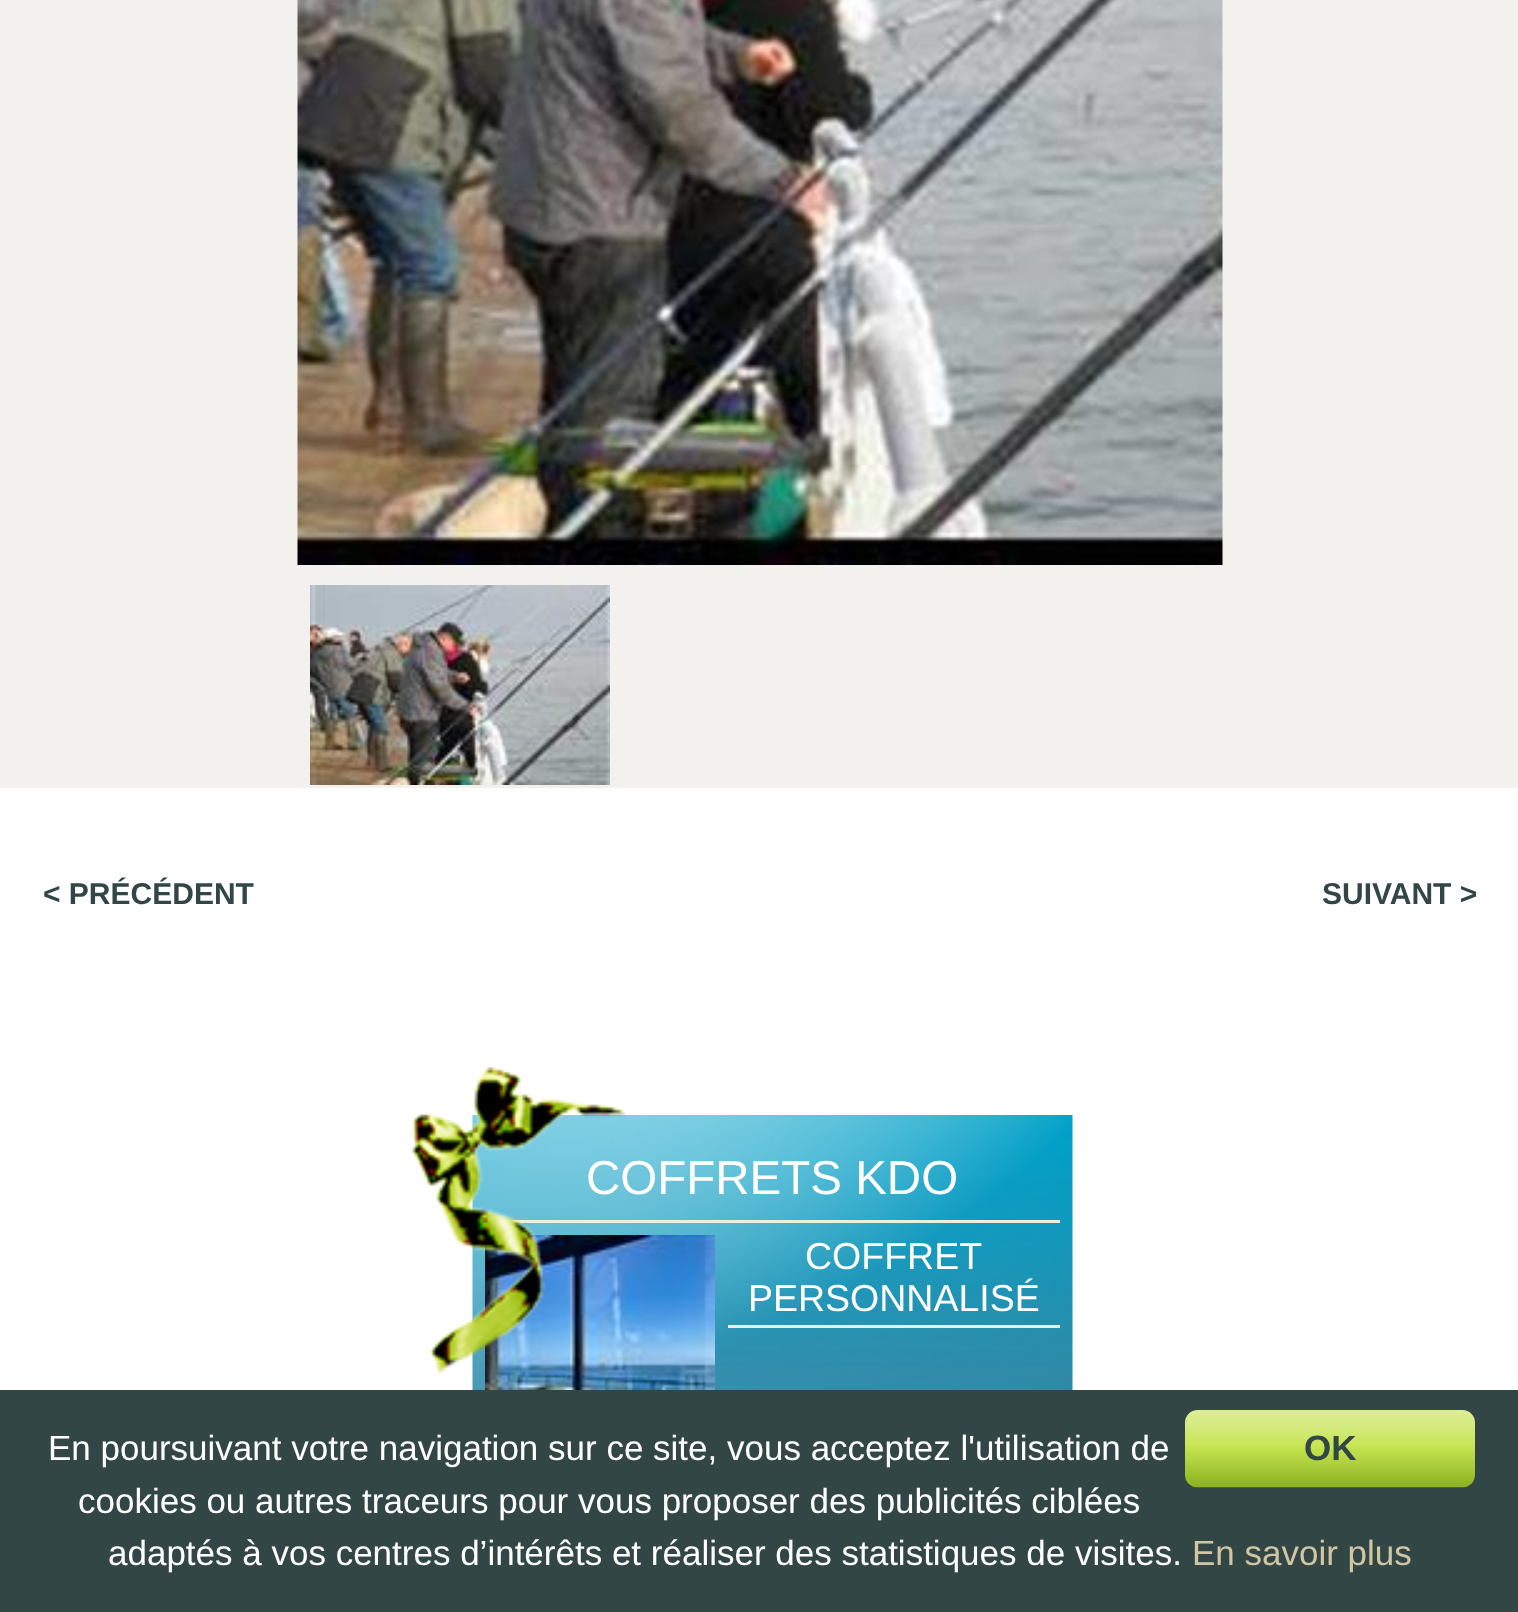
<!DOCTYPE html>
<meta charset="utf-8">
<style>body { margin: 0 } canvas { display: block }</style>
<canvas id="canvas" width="1518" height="1612"></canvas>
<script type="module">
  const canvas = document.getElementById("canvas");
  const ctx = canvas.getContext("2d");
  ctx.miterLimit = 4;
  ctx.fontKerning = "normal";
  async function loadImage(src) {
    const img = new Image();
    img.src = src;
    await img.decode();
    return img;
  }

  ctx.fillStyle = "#ffffff";
  ctx.fillRect(0, 0, 1518, 1612);
  ctx.fillStyle = "#f2f1ee";
  ctx.fillRect(0, 0, 1518, 788);
  ctx.drawImage(await loadImage("img1.png"), 297, 0, 926, 565);
  ctx.drawImage(await loadImage("img2.png"), 310, 585, 300, 200);
  ctx.font = "bold 30px Liberation Sans";
  ctx.fillStyle = "#324745";
  ctx.fillText("< PRÉCÉDENT", 43, 904);
  ctx.fillText("SUIVANT >", 1322, 904);
  ctx.drawImage(await loadImage("img3.png"), 472, 1115, 601, 275);
  ctx.fillStyle = "#ebf0db";
  ctx.fillRect(501, 1220, 559, 3);
  ctx.font = "47.5px Liberation Sans";
  ctx.fillStyle = "#ffffff";
  ctx.fillText("COFFRETS KDO", 586, 1194);
  ctx.drawImage(await loadImage("img5.png"), 485, 1235, 230, 155);
  ctx.drawImage(await loadImage("img4.png"), 412, 1067, 213, 306);
  ctx.fillStyle = "#ebf0db";
  ctx.fillRect(728, 1325, 332, 3);
  ctx.font = "37.5px Liberation Sans";
  ctx.fillStyle = "#ffffff";
  ctx.fillText("COFFRET", 805, 1269);
  ctx.fillText("PERSONNALISÉ", 748, 1311);
  ctx.fillStyle = "#324745";
  ctx.fillRect(0, 1390, 1518, 222);
  ctx.font = "35px Liberation Sans";
  ctx.fillStyle = "#ffffff";
  ctx.fillText("En poursuivant votre navigation sur ce site, vous acceptez l'utilisation de", 48, 1460);
  ctx.fillText("cookies ou autres traceurs pour vous proposer des publicités ciblées", 78, 1513);
  ctx.fillText("adaptés à vos centres d’intérêts et réaliser des statistiques de visites.", 108, 1565);
  ctx.fillStyle = "#d2c5a3";
  ctx.fillText("En savoir plus", 1192, 1565);
  ctx.drawImage(await loadImage("img6.png"), 1185, 1410, 290, 78);
  ctx.font = "bold 35px Liberation Sans";
  ctx.fillStyle = "#324745";
  ctx.fillText("OK", 1304, 1460);
</script>
